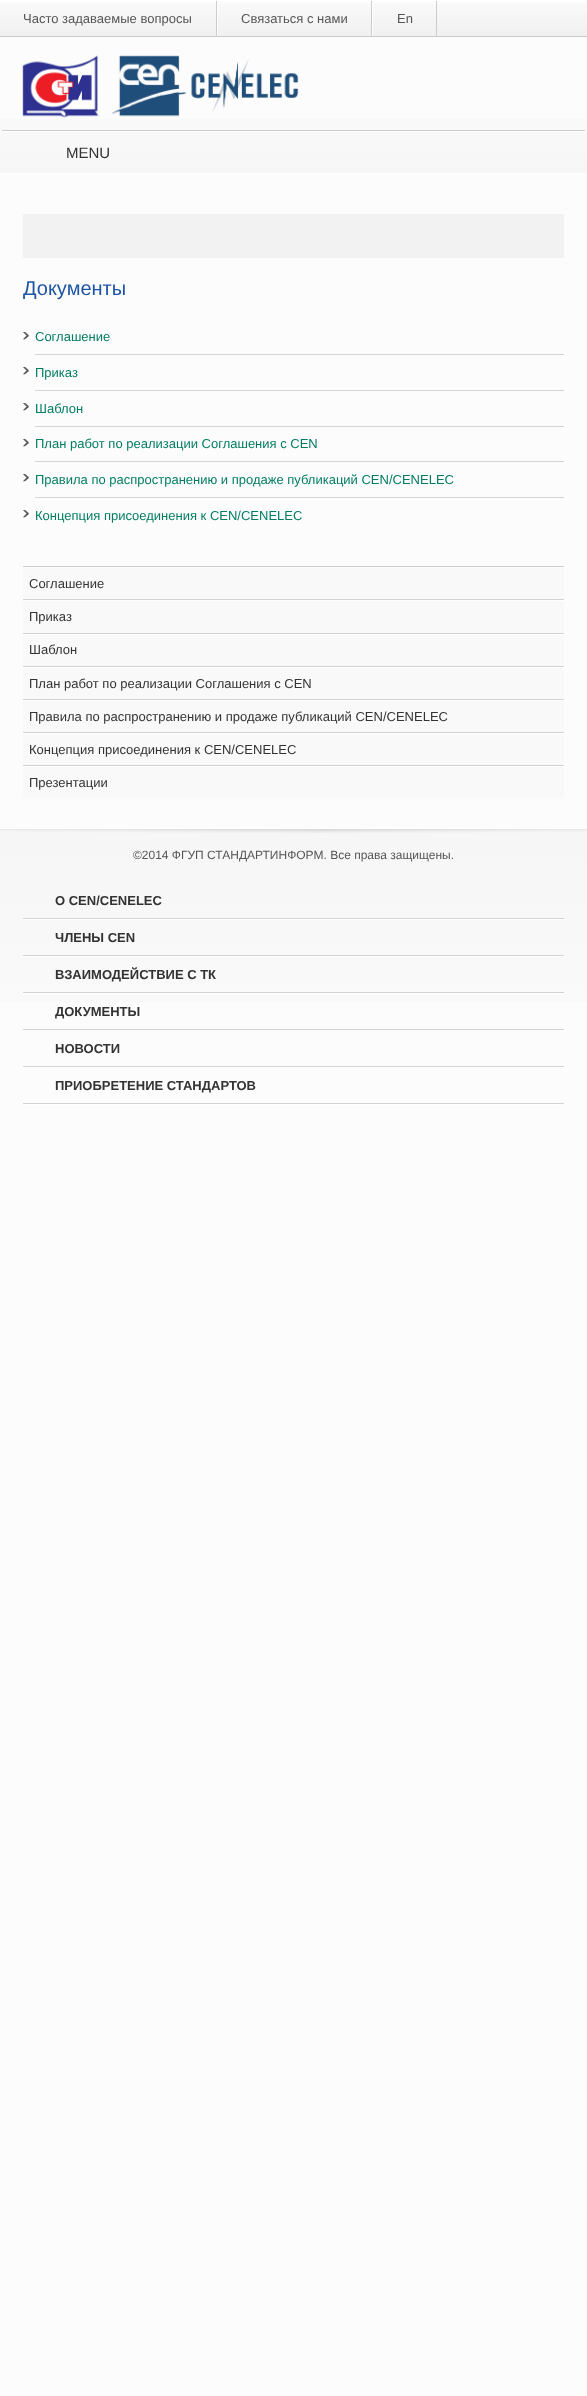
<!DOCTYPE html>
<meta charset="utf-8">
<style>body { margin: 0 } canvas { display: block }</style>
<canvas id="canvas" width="587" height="2396"></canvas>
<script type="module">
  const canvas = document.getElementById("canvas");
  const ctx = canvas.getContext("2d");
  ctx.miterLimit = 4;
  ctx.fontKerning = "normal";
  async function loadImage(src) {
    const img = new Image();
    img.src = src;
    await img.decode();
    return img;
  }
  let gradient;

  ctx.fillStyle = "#fcfcfc";
  ctx.fillRect(0, 0, 587, 2396);
  gradient = ctx.createLinearGradient(294, 1, 294, 173);
  gradient.addColorStop(0, "#fcfcfc");
  gradient.addColorStop(0.64, "#fafafa");
  gradient.addColorStop(1, "#f6f6f6");
  ctx.fillStyle = gradient;
  ctx.fillRect(0, 119, 587, 54);
  ctx.fillStyle = "#ffffff";
  ctx.fillRect(0, 0, 587, 1);
  gradient = ctx.createLinearGradient(294, 1, 294, 36);
  gradient.addColorStop(0, "#fafafa");
  gradient.addColorStop(1, "#f0f0f0");
  ctx.fillStyle = gradient;
  ctx.fillRect(0, 3, 587, 33);
  ctx.fillStyle = "#cccccc";
  ctx.fillRect(0, 36, 587, 1);
  ctx.fillRect(216, 1, 1, 35);
  ctx.font = "13px Liberation Sans";
  ctx.fillStyle = "#555555";
  ctx.fillText("Часто задаваемые вопросы", 23, 23);
  ctx.fillStyle = "#cccccc";
  ctx.fillRect(371, 1, 1, 35);
  ctx.fillStyle = "#ffffff";
  ctx.fillRect(217, 1, 1, 35);
  ctx.fillStyle = "#555555";
  ctx.fillText("Связаться с нами", 241, 23);
  ctx.fillStyle = "#cccccc";
  ctx.fillRect(436, 1, 1, 35);
  ctx.fillStyle = "#ffffff";
  ctx.fillRect(372, 1, 1, 35);
  ctx.fillStyle = "#555555";
  ctx.fillText("En", 397, 23);
  ctx.drawImage(await loadImage("img1.png"), 22, 55, 277, 63);
  ctx.fillStyle = "#cccccc";
  ctx.fillRect(2, 130, 583, 1);
  ctx.fillStyle = "#ffffff";
  ctx.fillRect(2, 131, 583, 1);
  ctx.font = "15px Liberation Sans";
  ctx.fillStyle = "#333333";
  ctx.fillText("MENU", 66, 158);
  ctx.fillStyle = "#ffffff";
  ctx.fillRect(0, 173, 587, 1);
  ctx.fillStyle = "#f2f2f2";
  ctx.fillRect(23, 214, 541, 44);
  ctx.font = "20px Liberation Sans";
  ctx.fillStyle = "#1d54a6";
  ctx.fillText("Документы", 23, 295);
  ctx.drawImage(await loadImage("img2.png"), 23, 332, 6, 8);
  ctx.fillStyle = "#d3d3d3";
  ctx.fillRect(35, 354, 529, 1);
  ctx.font = "13px Liberation Sans";
  ctx.fillStyle = "#007c63";
  ctx.fillText("Соглашение", 35, 341);
  ctx.drawImage(await loadImage("img2.png"), 23, 367, 6, 8);
  ctx.fillStyle = "#d3d3d3";
  ctx.fillRect(35, 390, 529, 1);
  ctx.fillStyle = "#007c63";
  ctx.fillText("Приказ", 35, 377);
  ctx.drawImage(await loadImage("img2.png"), 23, 403, 6, 8);
  ctx.fillStyle = "#d3d3d3";
  ctx.fillRect(35, 426, 529, 1);
  ctx.fillStyle = "#007c63";
  ctx.fillText("Шаблон", 35, 413);
  ctx.drawImage(await loadImage("img2.png"), 23, 439, 6, 8);
  ctx.fillStyle = "#d3d3d3";
  ctx.fillRect(35, 461, 529, 1);
  ctx.fillStyle = "#007c63";
  ctx.fillText("План работ по реализации Соглашения с CEN", 35, 448);
  ctx.drawImage(await loadImage("img2.png"), 23, 474, 6, 8);
  ctx.fillStyle = "#d3d3d3";
  ctx.fillRect(35, 497, 529, 1);
  ctx.fillStyle = "#007c63";
  ctx.fillText("Правила по распространению и продаже публикаций CEN/CENELEC", 35, 484);
  ctx.drawImage(await loadImage("img2.png"), 23, 510, 6, 8);
  ctx.fillText("Концепция присоединения к CEN/CENELEC", 35, 520);
  ctx.fillStyle = "#cccccc";
  ctx.fillRect(23, 566, 541, 1);
  ctx.fillStyle = "#f9f9f9";
  ctx.fillRect(23, 568, 541, 31);
  ctx.fillStyle = "#ffffff";
  ctx.fillRect(23, 567, 541, 1);
  ctx.fillStyle = "#d3d3d3";
  ctx.fillRect(23, 599, 541, 1);
  ctx.fillStyle = "#333333";
  ctx.fillText("Соглашение", 29, 588);
  ctx.fillStyle = "#f9f9f9";
  ctx.fillRect(23, 601, 541, 32);
  ctx.fillStyle = "#ffffff";
  ctx.fillRect(23, 600, 541, 1);
  ctx.fillStyle = "#d3d3d3";
  ctx.fillRect(23, 633, 541, 1);
  ctx.fillStyle = "#333333";
  ctx.fillText("Приказ", 29, 621);
  ctx.fillStyle = "#f9f9f9";
  ctx.fillRect(23, 635, 541, 31);
  ctx.fillStyle = "#ffffff";
  ctx.fillRect(23, 634, 541, 1);
  ctx.fillStyle = "#d3d3d3";
  ctx.fillRect(23, 666, 541, 1);
  ctx.fillStyle = "#333333";
  ctx.fillText("Шаблон", 29, 654);
  ctx.fillStyle = "#f9f9f9";
  ctx.fillRect(23, 668, 541, 31);
  ctx.fillStyle = "#ffffff";
  ctx.fillRect(23, 667, 541, 1);
  ctx.fillStyle = "#d3d3d3";
  ctx.fillRect(23, 699, 541, 1);
  ctx.fillStyle = "#333333";
  ctx.fillText("План работ по реализации Соглашения с CEN", 29, 688);
  ctx.fillStyle = "#f9f9f9";
  ctx.fillRect(23, 701, 541, 31);
  ctx.fillStyle = "#ffffff";
  ctx.fillRect(23, 700, 541, 1);
  ctx.fillStyle = "#d3d3d3";
  ctx.fillRect(23, 732, 541, 1);
  ctx.fillStyle = "#333333";
  ctx.fillText("Правила по распространению и продаже публикаций CEN/CENELEC", 29, 721);
  ctx.fillStyle = "#f9f9f9";
  ctx.fillRect(23, 734, 541, 31);
  ctx.fillStyle = "#ffffff";
  ctx.fillRect(23, 733, 541, 1);
  ctx.fillStyle = "#d3d3d3";
  ctx.fillRect(23, 765, 541, 1);
  ctx.fillStyle = "#333333";
  ctx.fillText("Концепция присоединения к CEN/CENELEC", 29, 754);
  ctx.fillStyle = "#f9f9f9";
  ctx.fillRect(23, 767, 541, 31);
  ctx.fillStyle = "#ffffff";
  ctx.fillRect(23, 766, 541, 1);
  ctx.fillStyle = "#333333";
  ctx.fillText("Презентации", 29, 787);
  gradient = ctx.createLinearGradient(294, 829, 294, 1125);
  gradient.addColorStop(0, "#f6f6f6");
  gradient.addColorStop(1, "#fcfcfc");
  ctx.fillStyle = gradient;
  ctx.fillRect(0, 829, 587, 173);
  ctx.fillStyle = "#ffffff";
  ctx.fillRect(0, 828, 587, 1);
  ctx.drawImage(await loadImage("img3.png"), 0, 829, 587, 4);
  ctx.font = "12px Liberation Sans";
  ctx.fillStyle = "#555555";
  ctx.fillText("©2014 ФГУП СТАНДАРТИНФОРМ. Все права защищены.", 133, 859);
  ctx.fillStyle = "#ffffff";
  ctx.fillRect(23, 919, 541, 1);
  ctx.fillStyle = "#d3d3d3";
  ctx.fillRect(23, 918, 541, 1);
  ctx.font = "bold 13px Liberation Sans";
  ctx.fillStyle = "#333333";
  ctx.fillText("О CEN/CENELEC", 55, 905);
  ctx.fillStyle = "#ffffff";
  ctx.fillRect(23, 956, 541, 1);
  ctx.fillStyle = "#d3d3d3";
  ctx.fillRect(23, 955, 541, 1);
  ctx.fillStyle = "#333333";
  ctx.fillText("ЧЛЕНЫ CEN", 55, 942);
  ctx.fillStyle = "#ffffff";
  ctx.fillRect(23, 993, 541, 1);
  ctx.fillStyle = "#d3d3d3";
  ctx.fillRect(23, 992, 541, 1);
  ctx.fillStyle = "#333333";
  ctx.fillText("ВЗАИМОДЕЙСТВИЕ С ТК", 55, 979);
  ctx.fillStyle = "#ffffff";
  ctx.fillRect(23, 1030, 541, 1);
  ctx.fillStyle = "#d3d3d3";
  ctx.fillRect(23, 1029, 541, 1);
  ctx.fillStyle = "#333333";
  ctx.fillText("ДОКУМЕНТЫ", 55, 1016);
  ctx.fillStyle = "#ffffff";
  ctx.fillRect(23, 1067, 541, 1);
  ctx.fillStyle = "#d3d3d3";
  ctx.fillRect(23, 1066, 541, 1);
  ctx.fillStyle = "#333333";
  ctx.fillText("НОВОСТИ", 55, 1053);
  ctx.fillStyle = "#ffffff";
  ctx.fillRect(23, 1104, 541, 1);
  ctx.fillStyle = "#d3d3d3";
  ctx.fillRect(23, 1103, 541, 1);
  ctx.fillStyle = "#333333";
  ctx.fillText("ПРИОБРЕТЕНИЕ СТАНДАРТОВ", 55, 1090);
</script>
